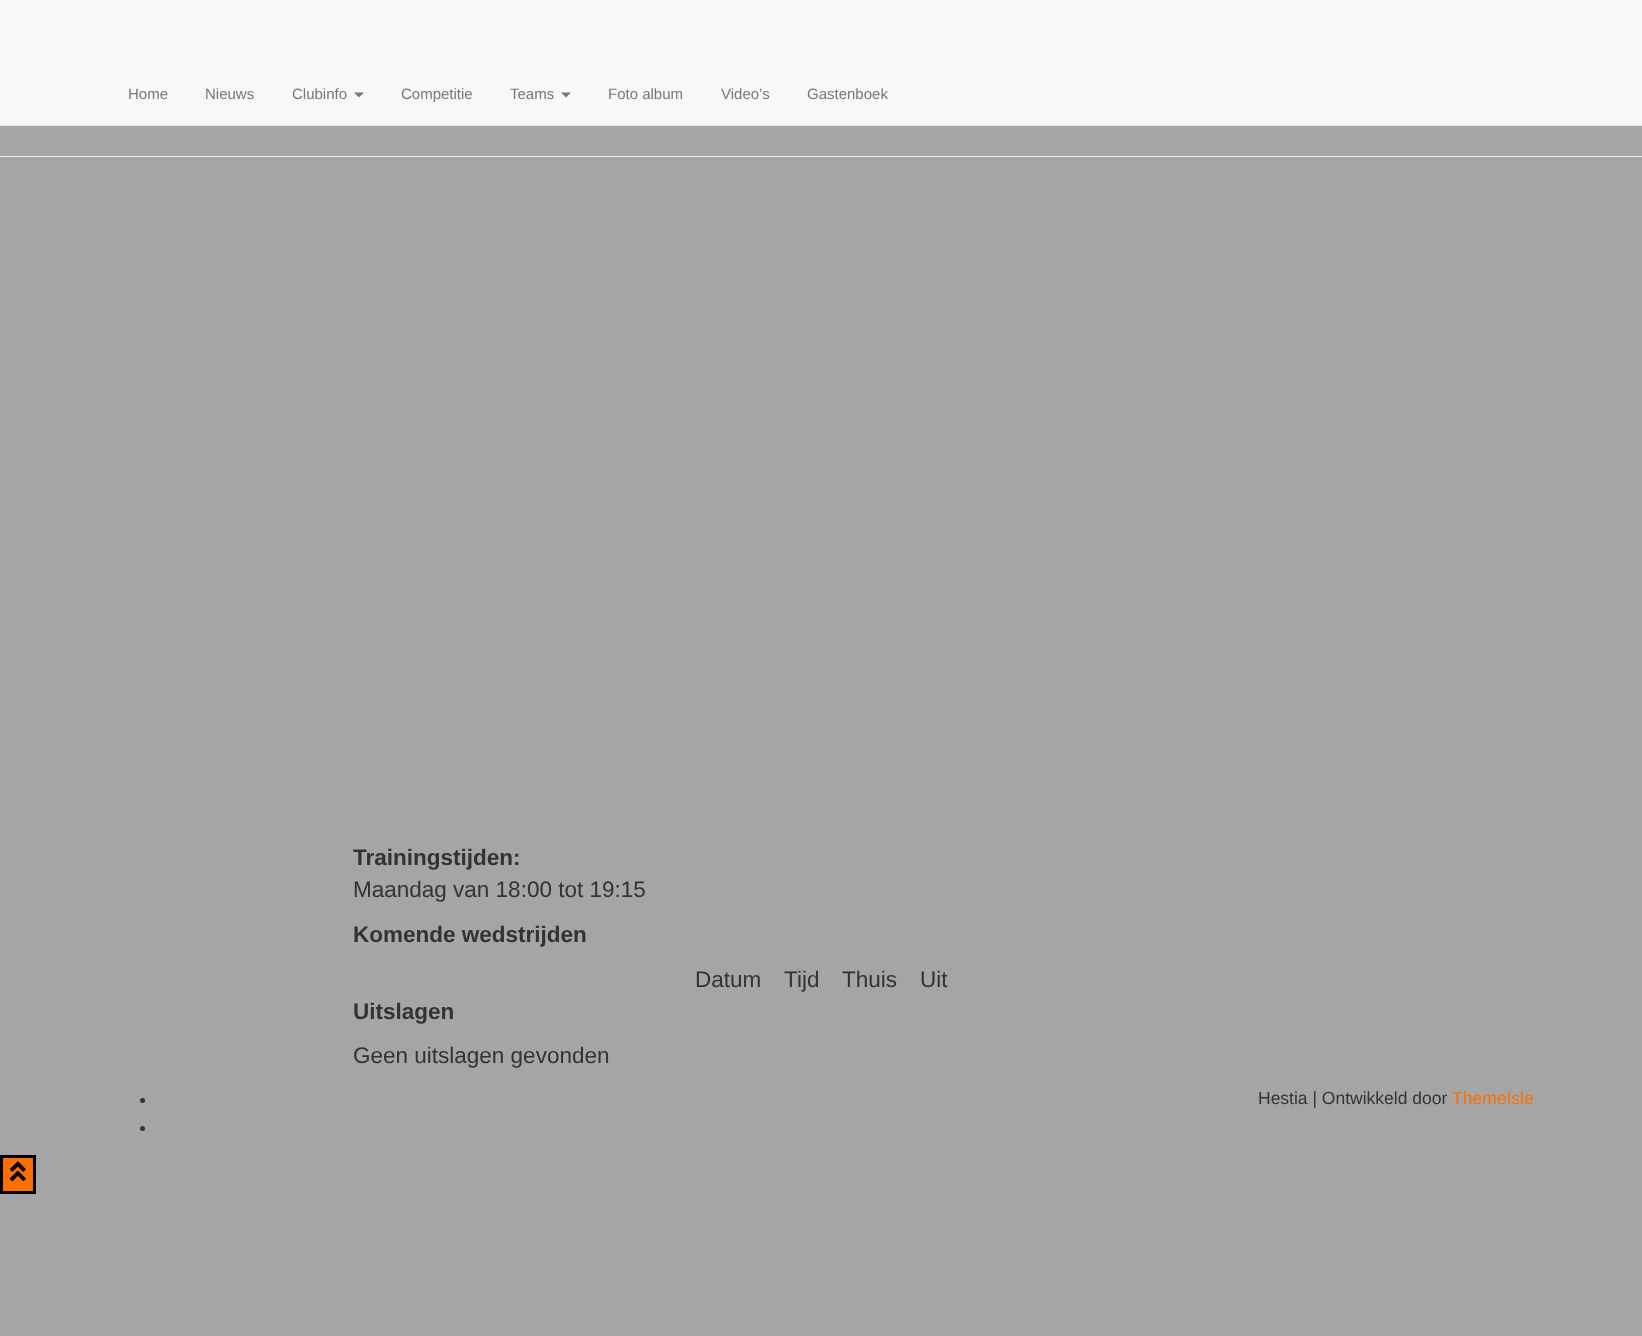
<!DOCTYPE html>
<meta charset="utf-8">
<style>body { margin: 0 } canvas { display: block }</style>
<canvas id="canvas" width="1642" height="1336"></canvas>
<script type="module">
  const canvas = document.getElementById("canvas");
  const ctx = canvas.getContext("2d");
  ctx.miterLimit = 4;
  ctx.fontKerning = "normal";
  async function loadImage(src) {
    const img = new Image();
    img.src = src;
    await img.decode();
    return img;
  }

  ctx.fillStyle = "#a5a5a5";
  ctx.fillRect(0, 0, 1642, 1336);
  ctx.fillStyle = "#f8f8f8";
  ctx.fillRect(0, 0, 1642, 125);
  ctx.fillStyle = "#e7e7e7";
  ctx.fillRect(0, 125, 1642, 1);
  ctx.font = "15px Liberation Sans";
  ctx.fillStyle = "#777777";
  ctx.fillText("Home", 128, 99);
  ctx.fillText("Nieuws", 205, 99);
  ctx.fillText("Clubinfo", 292, 99);
  ctx.beginPath();
  ctx.moveTo(354, 92.5);
  ctx.lineTo(364, 92.5);
  ctx.lineTo(359, 97.5);
  ctx.closePath();
  ctx.fill();
  ctx.fillText("Competitie", 401, 99);
  ctx.fillText("Teams", 510, 99);
  ctx.beginPath();
  ctx.moveTo(561, 92.5);
  ctx.lineTo(571, 92.5);
  ctx.lineTo(566, 97.5);
  ctx.closePath();
  ctx.fill();
  ctx.fillText("Foto album", 608, 99);
  ctx.fillText("Video’s", 721, 99);
  ctx.fillText("Gastenboek", 807, 99);
  ctx.fillStyle = "#eeeeee";
  ctx.fillRect(0, 156, 1642, 1);
  ctx.font = "bold 22.5px Liberation Sans";
  ctx.fillStyle = "#333333";
  ctx.fillText("Trainingstijden:", 353, 865);
  ctx.font = "22.5px Liberation Sans";
  ctx.fillText("Maandag van 18:00 tot 19:15", 353, 897);
  ctx.font = "bold 22.5px Liberation Sans";
  ctx.fillText("Komende wedstrijden", 353, 942);
  ctx.font = "22.5px Liberation Sans";
  ctx.fillText("Datum", 695, 987);
  ctx.fillText("Tijd", 784, 987);
  ctx.fillText("Thuis", 842, 987);
  ctx.fillText("Uit", 920, 987);
  ctx.font = "bold 22.5px Liberation Sans";
  ctx.fillText("Uitslagen", 353, 1019);
  ctx.font = "22.5px Liberation Sans";
  ctx.fillText("Geen uitslagen gevonden", 353, 1063);
  ctx.beginPath();
  ctx.arc(142.5, 1100.5, 2.5, 0, Math.PI * 2);
  ctx.fill();
  ctx.beginPath();
  ctx.arc(142.5, 1128.5, 2.5, 0, Math.PI * 2);
  ctx.fill();
  ctx.font = "17.5px Liberation Sans";
  ctx.fillText("Hestia | Ontwikkeld door", 1258, 1104);
  ctx.fillStyle = "#ff6e00";
  ctx.fillText("ThemeIsle", 1452, 1104);
  ctx.beginPath();
  ctx.rect(1.5, 1156.5, 33, 36);
  ctx.fill();
  ctx.strokeStyle = "#000000";
  ctx.lineWidth = 3;
  ctx.stroke();
  ctx.drawImage(await loadImage("img1.png"), 10, 1161, 16, 20);
</script>
